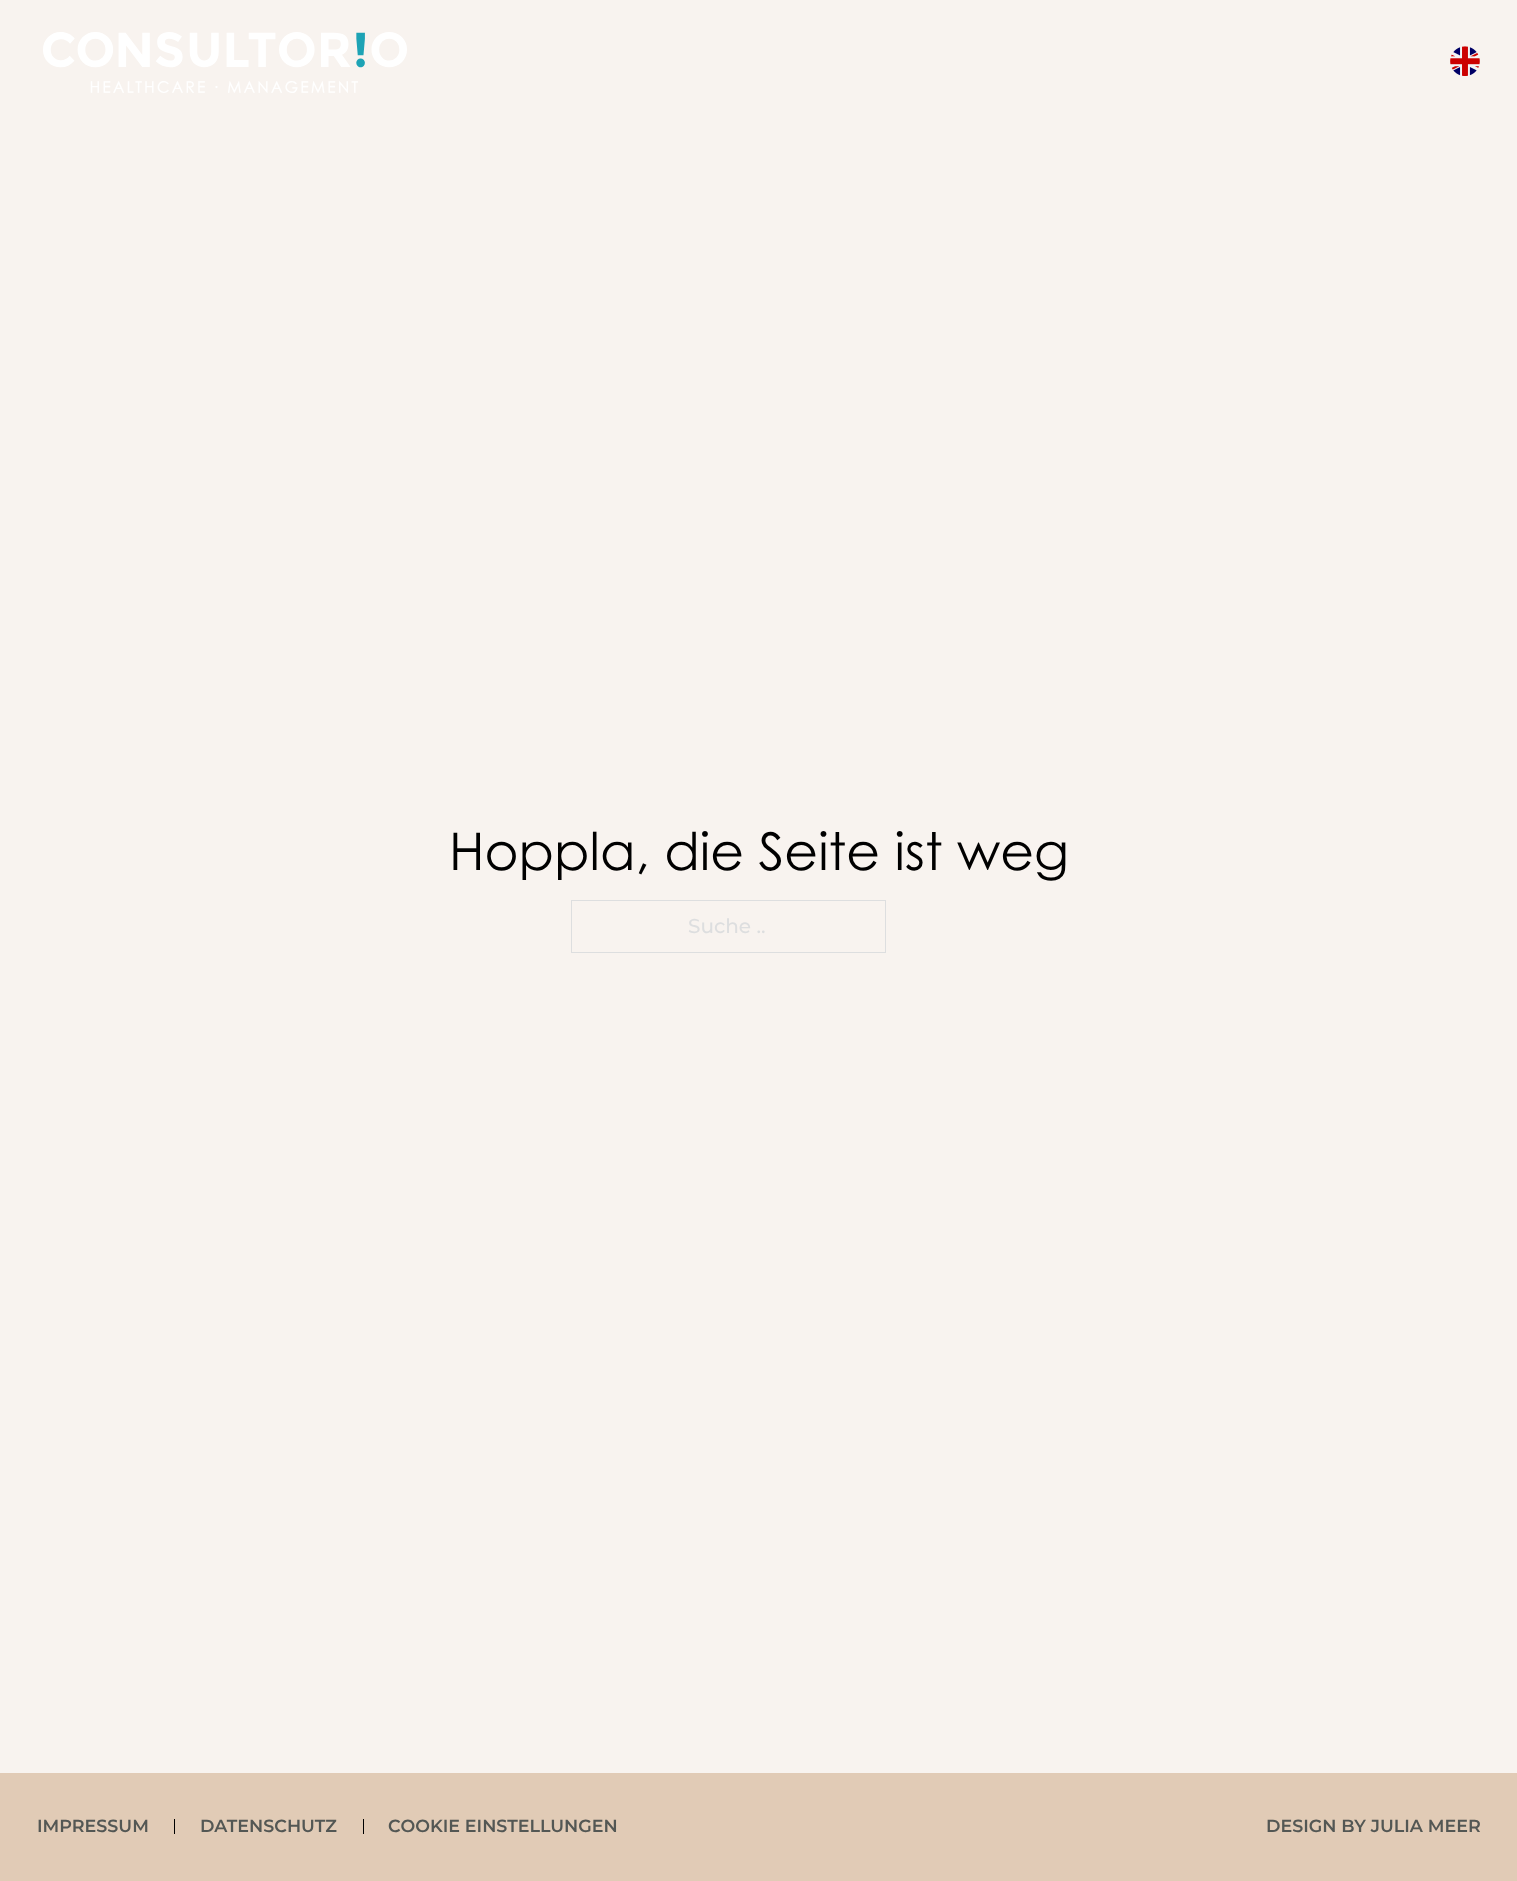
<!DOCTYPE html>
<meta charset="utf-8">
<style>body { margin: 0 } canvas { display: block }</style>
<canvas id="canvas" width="1517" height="1881"></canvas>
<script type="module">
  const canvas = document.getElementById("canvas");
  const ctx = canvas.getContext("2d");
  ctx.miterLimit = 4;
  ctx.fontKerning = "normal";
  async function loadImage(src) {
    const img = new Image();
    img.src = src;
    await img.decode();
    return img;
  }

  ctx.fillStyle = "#f8f3ef";
  ctx.fillRect(0, 0, 1517, 1881);
  ctx.drawImage(await loadImage("img1.png"), 43, 32, 364, 61);
  ctx.drawImage(await loadImage("img2.png"), 1450, 46, 30, 30);
  ctx.font = "52px Century Gothic";
  ctx.fillStyle = "#000000";
  ctx.fillText("Hoppla, die Seite ist weg", 449, 870);
  ctx.strokeStyle = "#dddedf";
  ctx.strokeRect(571.5, 900.5, 314, 52);
  ctx.font = "100 20px Montserrat";
  ctx.fillStyle = "#dddedf";
  ctx.fillText("Suche ..", 688, 933);
  ctx.fillStyle = "#e1cbb6";
  ctx.fillRect(0, 1773, 1517, 108);
  ctx.font = "100 17.5px 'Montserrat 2'";
  ctx.fillStyle = "#535754";
  ctx.fillText("IMPRESSUM", 37, 1832);
  ctx.fillStyle = "#000000";
  ctx.fillRect(174, 1819, 1, 15);
  ctx.fillStyle = "#535754";
  ctx.fillText("DATENSCHUTZ", 200, 1832);
  ctx.fillStyle = "#000000";
  ctx.fillRect(363, 1819, 1, 15);
  ctx.fillStyle = "#535754";
  ctx.fillText("COOKIE EINSTELLUNGEN", 388, 1832);
  ctx.fillText("DESIGN BY JULIA MEER", 1266, 1832);
</script>
